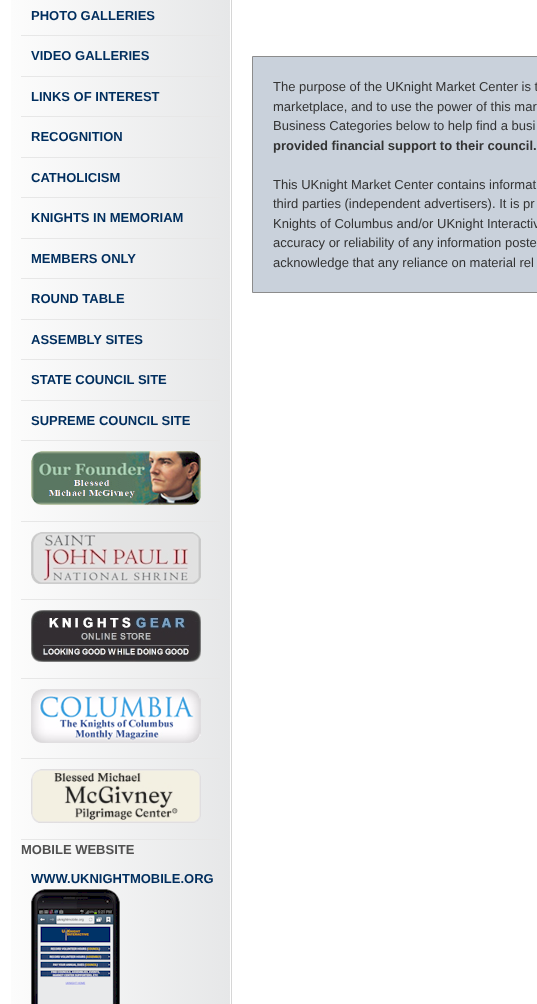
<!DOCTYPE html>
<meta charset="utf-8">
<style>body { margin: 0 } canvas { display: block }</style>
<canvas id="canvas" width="537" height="1004"></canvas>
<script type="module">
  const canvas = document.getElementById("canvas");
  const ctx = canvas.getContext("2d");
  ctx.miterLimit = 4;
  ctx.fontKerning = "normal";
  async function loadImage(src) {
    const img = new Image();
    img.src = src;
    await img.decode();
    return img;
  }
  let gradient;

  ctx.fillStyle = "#ffffff";
  ctx.fillRect(0, 0, 537, 1004);
  gradient = ctx.createLinearGradient(11, 386, 231, 386);
  gradient.addColorStop(0, "#fcfcfc");
  gradient.addColorStop(1, "#e6e7e8");
  ctx.fillStyle = gradient;
  ctx.fillRect(11, 0, 219, 1004);
  ctx.fillStyle = "#d6d6d6";
  ctx.fillRect(231, 0, 1, 1004);
  ctx.fillStyle = "#e7e7e7";
  ctx.fillRect(21, 35, 199, 1);
  ctx.font = "bold 13px Liberation Sans";
  ctx.fillStyle = "#002e5e";
  ctx.fillText("PHOTO GALLERIES", 31, 20);
  ctx.fillStyle = "#e7e7e7";
  ctx.fillRect(21, 76, 199, 1);
  ctx.fillStyle = "#002e5e";
  ctx.fillText("VIDEO GALLERIES", 31, 60);
  ctx.fillStyle = "#e7e7e7";
  ctx.fillRect(21, 116, 199, 1);
  ctx.fillStyle = "#002e5e";
  ctx.fillText("LINKS OF INTEREST", 31, 101);
  ctx.fillStyle = "#e7e7e7";
  ctx.fillRect(21, 157, 199, 1);
  ctx.fillStyle = "#002e5e";
  ctx.fillText("RECOGNITION", 31, 141);
  ctx.fillStyle = "#e7e7e7";
  ctx.fillRect(21, 197, 199, 1);
  ctx.fillStyle = "#002e5e";
  ctx.fillText("CATHOLICISM", 31, 182);
  ctx.fillStyle = "#e7e7e7";
  ctx.fillRect(21, 238, 199, 1);
  ctx.fillStyle = "#002e5e";
  ctx.fillText("KNIGHTS IN MEMORIAM", 31, 222);
  ctx.fillStyle = "#e7e7e7";
  ctx.fillRect(21, 278, 199, 1);
  ctx.fillStyle = "#002e5e";
  ctx.fillText("MEMBERS ONLY", 31, 263);
  ctx.fillStyle = "#e7e7e7";
  ctx.fillRect(21, 319, 199, 1);
  ctx.fillStyle = "#002e5e";
  ctx.fillText("ROUND TABLE", 31, 303);
  ctx.fillStyle = "#e7e7e7";
  ctx.fillRect(21, 359, 199, 1);
  ctx.fillStyle = "#002e5e";
  ctx.fillText("ASSEMBLY SITES", 31, 344);
  ctx.fillStyle = "#e7e7e7";
  ctx.fillRect(21, 400, 199, 1);
  ctx.fillStyle = "#002e5e";
  ctx.fillText("STATE COUNCIL SITE", 31, 384);
  ctx.fillStyle = "#e7e7e7";
  ctx.fillRect(21, 440, 199, 1);
  ctx.fillStyle = "#002e5e";
  ctx.fillText("SUPREME COUNCIL SITE", 31, 425);
  ctx.fillStyle = "#e7e7e7";
  ctx.fillRect(21, 521, 199, 1);
  ctx.drawImage(await loadImage("img1.png"), 31, 451, 170, 54);
  ctx.fillRect(21, 599, 199, 1);
  ctx.drawImage(await loadImage("img2.png"), 31, 532, 170, 52);
  ctx.fillRect(21, 678, 199, 1);
  ctx.drawImage(await loadImage("img3.png"), 31, 610, 170, 52);
  ctx.fillRect(21, 758, 199, 1);
  ctx.drawImage(await loadImage("img4.png"), 31, 689, 170, 54);
  ctx.fillRect(21, 839, 199, 1);
  ctx.drawImage(await loadImage("img5.png"), 31, 769, 170, 54);
  ctx.fillStyle = "#515151";
  ctx.fillText("MOBILE WEBSITE", 21, 854);
  ctx.fillStyle = "#002e5e";
  ctx.fillText("WWW.UKNIGHTMOBILE.ORG", 31, 883);
  ctx.drawImage(await loadImage("img6.png"), 31, 889, 89, 115);
  ctx.fillStyle = "#c9d1db";
  ctx.beginPath();
  ctx.rect(252.5, 56.5, 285, 236);
  ctx.fill();
  ctx.strokeStyle = "#8c8c8c";
  ctx.stroke();
  ctx.font = "13px Liberation Sans";
  ctx.fillStyle = "#333333";
  ctx.fillText("The purpose of the UKnight Market Center is t", 273, 91);
  ctx.fillText("marketplace, and to use the power of this mar", 273, 111);
  ctx.fillText("Business Categories below to help find a busi", 273, 130);
  ctx.font = "bold 13px Liberation Sans";
  ctx.fillText("provided financial support to their council.", 273, 150);
  ctx.font = "13px Liberation Sans";
  ctx.fillText("This UKnight Market Center contains informat", 273, 189);
  ctx.fillText("third parties (independent advertisers). It is pr", 273, 208);
  ctx.fillText("Knights of Columbus and/or UKnight Interactiv", 273, 228);
  ctx.fillText("accuracy or reliability of any information poste", 273, 247);
  ctx.fillText("acknowledge that any reliance on material rel", 273, 267);
</script>
